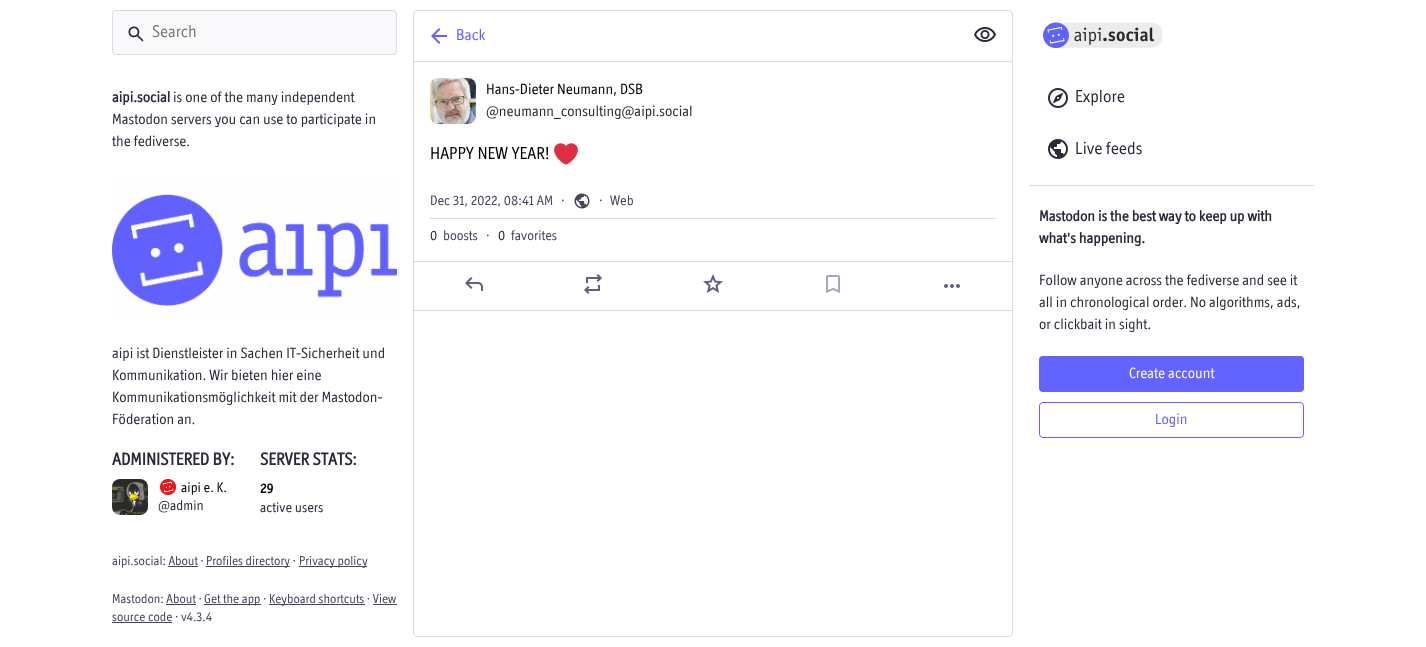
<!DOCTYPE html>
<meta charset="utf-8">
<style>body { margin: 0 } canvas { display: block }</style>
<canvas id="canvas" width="1426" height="647"></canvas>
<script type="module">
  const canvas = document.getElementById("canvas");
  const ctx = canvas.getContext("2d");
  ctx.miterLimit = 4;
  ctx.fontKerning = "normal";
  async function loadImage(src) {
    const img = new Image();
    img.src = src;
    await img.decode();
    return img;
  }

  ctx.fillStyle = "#ffffff";
  ctx.fillRect(0, 0, 1426, 647);
  ctx.fillStyle = "#f9f9fb";
  ctx.beginPath();
  ctx.roundRect(112.5, 10.5, 284, 44, 3.5);
  ctx.fill();
  ctx.strokeStyle = "#d9d9e8";
  ctx.stroke();
  ctx.drawImage(await loadImage("img1.png"), 128, 26, 16, 16);
  ctx.font = "17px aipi";
  ctx.fillStyle = "#757575";
  ctx.fillText("Search", 152, 37);
  ctx.font = "bold 15px aipi";
  ctx.fillStyle = "#292938";
  ctx.fillText("aipi.social", 112, 102);
  ctx.font = "15px aipi";
  ctx.fillText("is one of the many independent", 173, 102);
  ctx.fillText("Mastodon servers you can use to participate in", 112, 124);
  ctx.fillText("the fediverse.", 112, 146);
  ctx.drawImage(await loadImage("img2.png"), 112, 173, 285, 150);
  ctx.fillText("aipi ist Dienstleister in Sachen IT-Sicherheit und", 112, 358);
  ctx.fillText("Kommunikation. Wir bieten hier eine", 112, 380);
  ctx.fillText("Kommunikationsmöglichkeit mit der Mastodon-", 112, 402);
  ctx.fillText("Föderation an.", 112, 424);
  ctx.font = "bold 17.5px aipi";
  ctx.fillText("ADMINISTERED BY:", 112, 465);
  ctx.drawImage(await loadImage("img3.png"), 112, 479, 36, 36);
  ctx.drawImage(await loadImage("img4.png"), 160, 479, 16, 16);
  ctx.font = "14px aipi";
  ctx.fillStyle = "#000000";
  ctx.fillText("aipi e. K.", 181, 492);
  ctx.fillStyle = "#292938";
  ctx.fillText("@admin", 158, 510);
  ctx.font = "bold 17.5px aipi";
  ctx.fillText("SERVER STATS:", 260, 465);
  ctx.font = "bold 14px aipi";
  ctx.fillStyle = "#000000";
  ctx.fillText("29", 260, 493);
  ctx.font = "14px aipi";
  ctx.fillStyle = "#292938";
  ctx.fillText("active users", 260, 512);
  ctx.font = "13px aipi";
  ctx.fillStyle = "#45455f";
  ctx.fillText("aipi.social: About ·", 112, 565);
  ctx.fillRect(206, 566, 84, 1);
  ctx.fillText("Profiles directory ·", 206, 565);
  ctx.fillRect(299, 566, 68, 1);
  ctx.fillText("Privacy policy", 299, 565);
  ctx.fillRect(168, 566, 30, 1);
  ctx.fillText("Mastodon: About ·", 112, 603);
  ctx.fillRect(204, 604, 57, 1);
  ctx.fillText("Get the app ·", 204, 603);
  ctx.fillRect(269, 604, 96, 1);
  ctx.fillText("Keyboard shortcuts · View", 269, 603);
  ctx.fillRect(166, 604, 30, 1);
  ctx.fillText("source code · v4.3.4", 112, 621);
  ctx.fillRect(373, 604, 24, 1);
  ctx.fillRect(112, 622, 60, 1);
  ctx.beginPath();
  ctx.roundRect(413.5, 10.5, 599, 51, [3.5, 3.5, 0, 0]);
  ctx.stroke();
  ctx.drawImage(await loadImage("img5.png"), 431, 28, 16, 16);
  ctx.font = "16px aipi";
  ctx.fillStyle = "#6161ff";
  ctx.fillText("Back", 456, 40);
  ctx.drawImage(await loadImage("img6.png"), 974, 27, 22, 15);
  ctx.fillStyle = "#d9d9e8";
  ctx.beginPath();
  ctx.moveTo(413, 62);
  ctx.lineTo(1013, 62);
  ctx.lineTo(1013, 633);
  ctx.bezierCurveTo(1013, 635, 1011, 637, 1009, 637);
  ctx.lineTo(417, 637);
  ctx.bezierCurveTo(415, 637, 413, 635, 413, 633);
  ctx.closePath();
  ctx.moveTo(414, 62);
  ctx.lineTo(1012, 62);
  ctx.lineTo(1012, 633);
  ctx.bezierCurveTo(1012, 635, 1011, 636, 1009, 636);
  ctx.lineTo(417, 636);
  ctx.bezierCurveTo(415, 636, 414, 635, 414, 633);
  ctx.closePath();
  ctx.fill("evenodd");
  ctx.drawImage(await loadImage("img7.png"), 430, 78, 46, 46);
  ctx.font = "15px aipi";
  ctx.fillStyle = "#000000";
  ctx.fillText("Hans-Dieter Neumann, DSB", 486, 94);
  ctx.fillStyle = "#292938";
  ctx.fillText("@neumann_consulting@aipi.social", 486, 116);
  ctx.font = "17.5px aipi";
  ctx.fillStyle = "#000000";
  ctx.fillText("HAPPY NEW YEAR!", 430, 159);
  ctx.drawImage(await loadImage("img8.png"), 554, 143, 24, 22);
  ctx.fillStyle = "#d9d9e8";
  ctx.fillRect(430, 218, 566, 1);
  ctx.font = "14px aipi";
  ctx.fillStyle = "#45455f";
  ctx.fillText("Dec 31, 2022, 08:41 AM", 430, 205);
  ctx.fillText("·", 561, 205);
  ctx.drawImage(await loadImage("img9.png"), 574, 193, 16, 16);
  ctx.fillText("·", 599, 205);
  ctx.fillText("Web", 610, 205);
  ctx.fillStyle = "#292938";
  ctx.fillText("0", 430, 240);
  ctx.fillStyle = "#45455f";
  ctx.fillText("boosts", 443, 240);
  ctx.fillText("·", 486, 240);
  ctx.fillStyle = "#292938";
  ctx.fillText("0", 498, 240);
  ctx.fillStyle = "#45455f";
  ctx.fillText("favorites", 511, 240);
  ctx.fillStyle = "#d9d9e8";
  ctx.fillRect(414, 261, 598, 1);
  ctx.fillRect(414, 310, 598, 1);
  ctx.drawImage(await loadImage("img10.png"), 465, 277, 18, 14);
  ctx.drawImage(await loadImage("img11.png"), 584, 274, 18, 20);
  ctx.drawImage(await loadImage("img12.png"), 703, 274, 20, 19);
  ctx.drawImage(await loadImage("img13.png"), 826, 275, 14, 18);
  ctx.drawImage(await loadImage("img14.png"), 944, 284, 16, 4);
  ctx.drawImage(await loadImage("img15.png"), 1043, 22, 119, 27);
  ctx.drawImage(await loadImage("img16.png"), 1048, 88, 20, 20);
  ctx.font = "17.5px aipi";
  ctx.fillStyle = "#292938";
  ctx.fillText("Explore", 1075, 102);
  ctx.drawImage(await loadImage("img17.png"), 1048, 139, 20, 20);
  ctx.fillText("Live feeds", 1075, 154);
  ctx.fillStyle = "#d9d9e8";
  ctx.fillRect(1029, 185, 285, 1);
  ctx.font = "bold 15px aipi";
  ctx.fillStyle = "#292938";
  ctx.fillText("Mastodon is the best way to keep up with", 1039, 221);
  ctx.fillText("what's happening.", 1039, 243);
  ctx.font = "15px aipi";
  ctx.fillText("Follow anyone across the fediverse and see it", 1039, 285);
  ctx.fillText("all in chronological order. No algorithms, ads,", 1039, 307);
  ctx.fillText("or clickbait in sight.", 1039, 329);
  ctx.fillStyle = "#6364ff";
  ctx.beginPath();
  ctx.roundRect(1039, 356, 265, 36, 4);
  ctx.fill();
  ctx.fillStyle = "#ffffff";
  ctx.fillText("Create account", 1129, 378);
  ctx.beginPath();
  ctx.roundRect(1039.5, 402.5, 264, 35, 3.5);
  ctx.strokeStyle = "#6161ff";
  ctx.stroke();
  ctx.fillStyle = "#6161ff";
  ctx.fillText("Login", 1155, 424);
</script>
